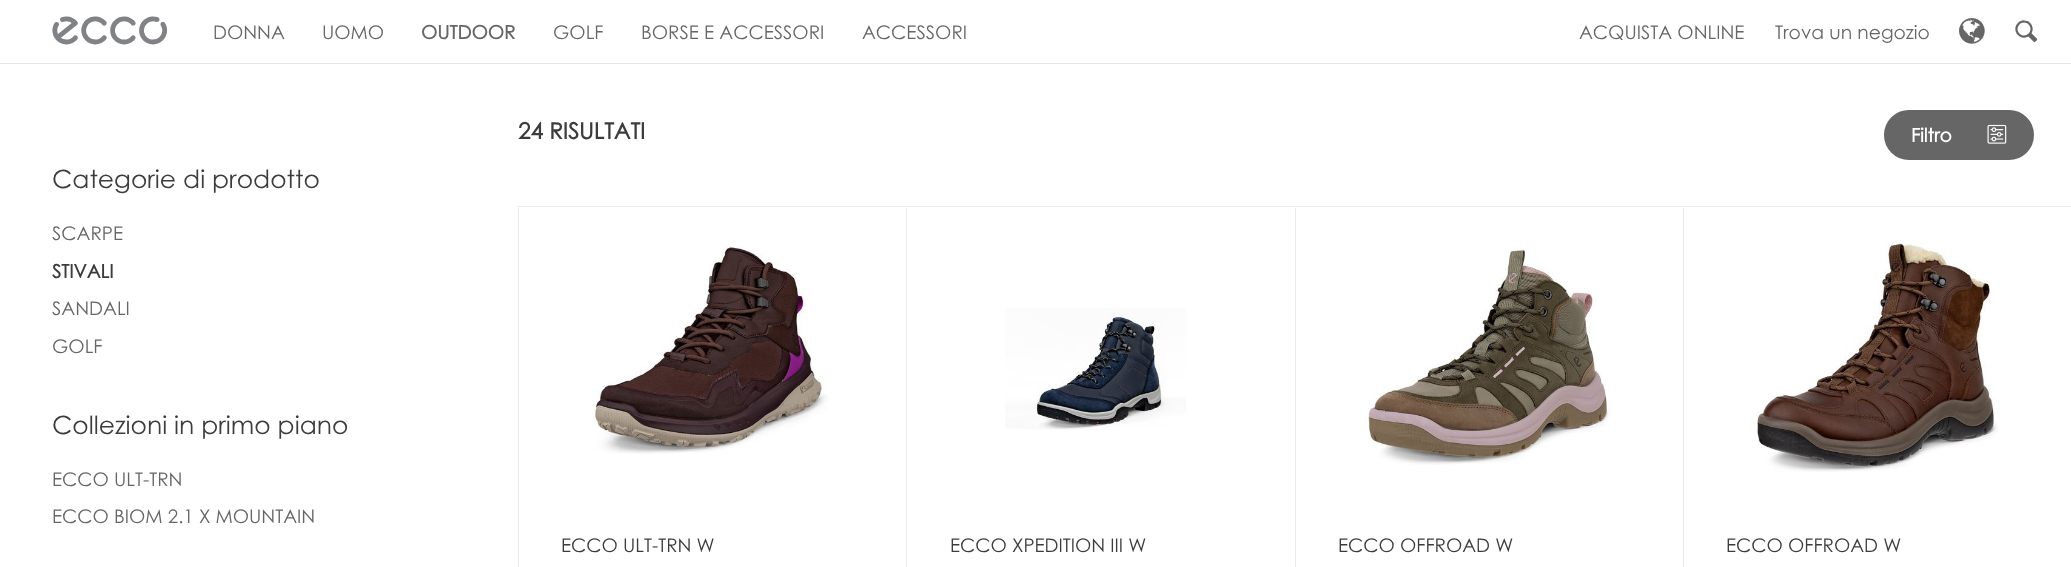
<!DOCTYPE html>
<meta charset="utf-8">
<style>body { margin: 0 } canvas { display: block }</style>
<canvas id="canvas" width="2071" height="567"></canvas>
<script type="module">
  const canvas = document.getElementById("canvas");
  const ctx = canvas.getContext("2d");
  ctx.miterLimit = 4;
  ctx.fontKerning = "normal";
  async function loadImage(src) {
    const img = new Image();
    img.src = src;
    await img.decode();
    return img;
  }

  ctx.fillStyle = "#ffffff";
  ctx.fillRect(0, 0, 2071, 567);
  ctx.fillStyle = "#e6e6e6";
  ctx.fillRect(0, 63, 2071, 1);
  ctx.font = "30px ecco";
  ctx.fillStyle = "#808285";
  ctx.fillText("!", 51, 44);
  ctx.font = "18.75px Century Gothic";
  ctx.fillStyle = "#666666";
  ctx.fillText("DONNA", 213, 39);
  ctx.fillText("UOMO", 322, 39);
  ctx.font = "bold 18.75px Century Gothic";
  ctx.fillText("OUTDOOR", 421, 39);
  ctx.font = "18.75px Century Gothic";
  ctx.fillText("GOLF", 553, 39);
  ctx.fillText("BORSE E ACCESSORI", 641, 39);
  ctx.fillText("ACCESSORI", 862, 39);
  ctx.fillText("ACQUISTA ONLINE", 1579, 39);
  ctx.fillText("Trova un negozio", 1775, 39);
  ctx.font = "30px ecco";
  ctx.fillText("%", 1959, 44);
  ctx.font = "22.5px ecco";
  ctx.fillText("#", 2015, 41);
  ctx.font = "25px Century Gothic";
  ctx.fillStyle = "#3c3c3c";
  ctx.fillText("Categorie di prodotto", 52, 188);
  ctx.font = "18.75px Century Gothic";
  ctx.fillStyle = "#666666";
  ctx.fillText("SCARPE", 52, 240);
  ctx.font = "bold 18.75px Century Gothic";
  ctx.fillStyle = "#3c3c3c";
  ctx.fillText("STIVALI", 52, 278);
  ctx.font = "18.75px Century Gothic";
  ctx.fillStyle = "#666666";
  ctx.fillText("SANDALI", 52, 315);
  ctx.fillText("GOLF", 52, 353);
  ctx.font = "25px Century Gothic";
  ctx.fillStyle = "#3c3c3c";
  ctx.fillText("Collezioni in primo piano", 52, 434);
  ctx.font = "18.75px Century Gothic";
  ctx.fillStyle = "#666666";
  ctx.fillText("ECCO ULT-TRN", 52, 486);
  ctx.fillText("ECCO BIOM 2.1 X MOUNTAIN", 52, 523);
  ctx.font = "bold 22.5px Century Gothic";
  ctx.fillStyle = "#3c3c3c";
  ctx.fillText("24 RISULTATI", 518, 139);
  ctx.fillStyle = "#666666";
  ctx.beginPath();
  ctx.roundRect(1885.5, 111.5, 147, 47, 23.5);
  ctx.fill();
  ctx.strokeStyle = "#666666";
  ctx.lineWidth = 3;
  ctx.stroke();
  ctx.font = "bold 18.75px Century Gothic";
  ctx.fillStyle = "#ffffff";
  ctx.fillText("Filtro", 1911, 142);
  ctx.drawImage(await loadImage("img1.png"), 1987, 124, 20, 20);
  ctx.fillStyle = "#ebebeb";
  ctx.fillRect(518, 206, 1553, 1);
  ctx.fillRect(518, 208, 1, 359);
  ctx.drawImage(await loadImage("img2.png"), 592, 245, 237, 209);
  ctx.font = "18.75px Century Gothic";
  ctx.fillStyle = "#3c3c3c";
  ctx.fillText("ECCO ULT-TRN W", 561, 552);
  ctx.fillStyle = "#ebebeb";
  ctx.fillRect(906, 208, 1, 359);
  ctx.drawImage(await loadImage("img3.png"), 1005, 308, 181, 122);
  ctx.fillStyle = "#3c3c3c";
  ctx.fillText("ECCO XPEDITION III W", 950, 552);
  ctx.fillStyle = "#ebebeb";
  ctx.fillRect(1295, 208, 1, 359);
  ctx.drawImage(await loadImage("img4.png"), 1368, 249, 243, 216);
  ctx.fillStyle = "#3c3c3c";
  ctx.fillText("ECCO OFFROAD W", 1338, 552);
  ctx.fillStyle = "#ebebeb";
  ctx.fillRect(1683, 208, 1, 359);
  ctx.drawImage(await loadImage("img5.png"), 1757, 240, 241, 232);
  ctx.fillStyle = "#3c3c3c";
  ctx.fillText("ECCO OFFROAD W", 1726, 552);
</script>
